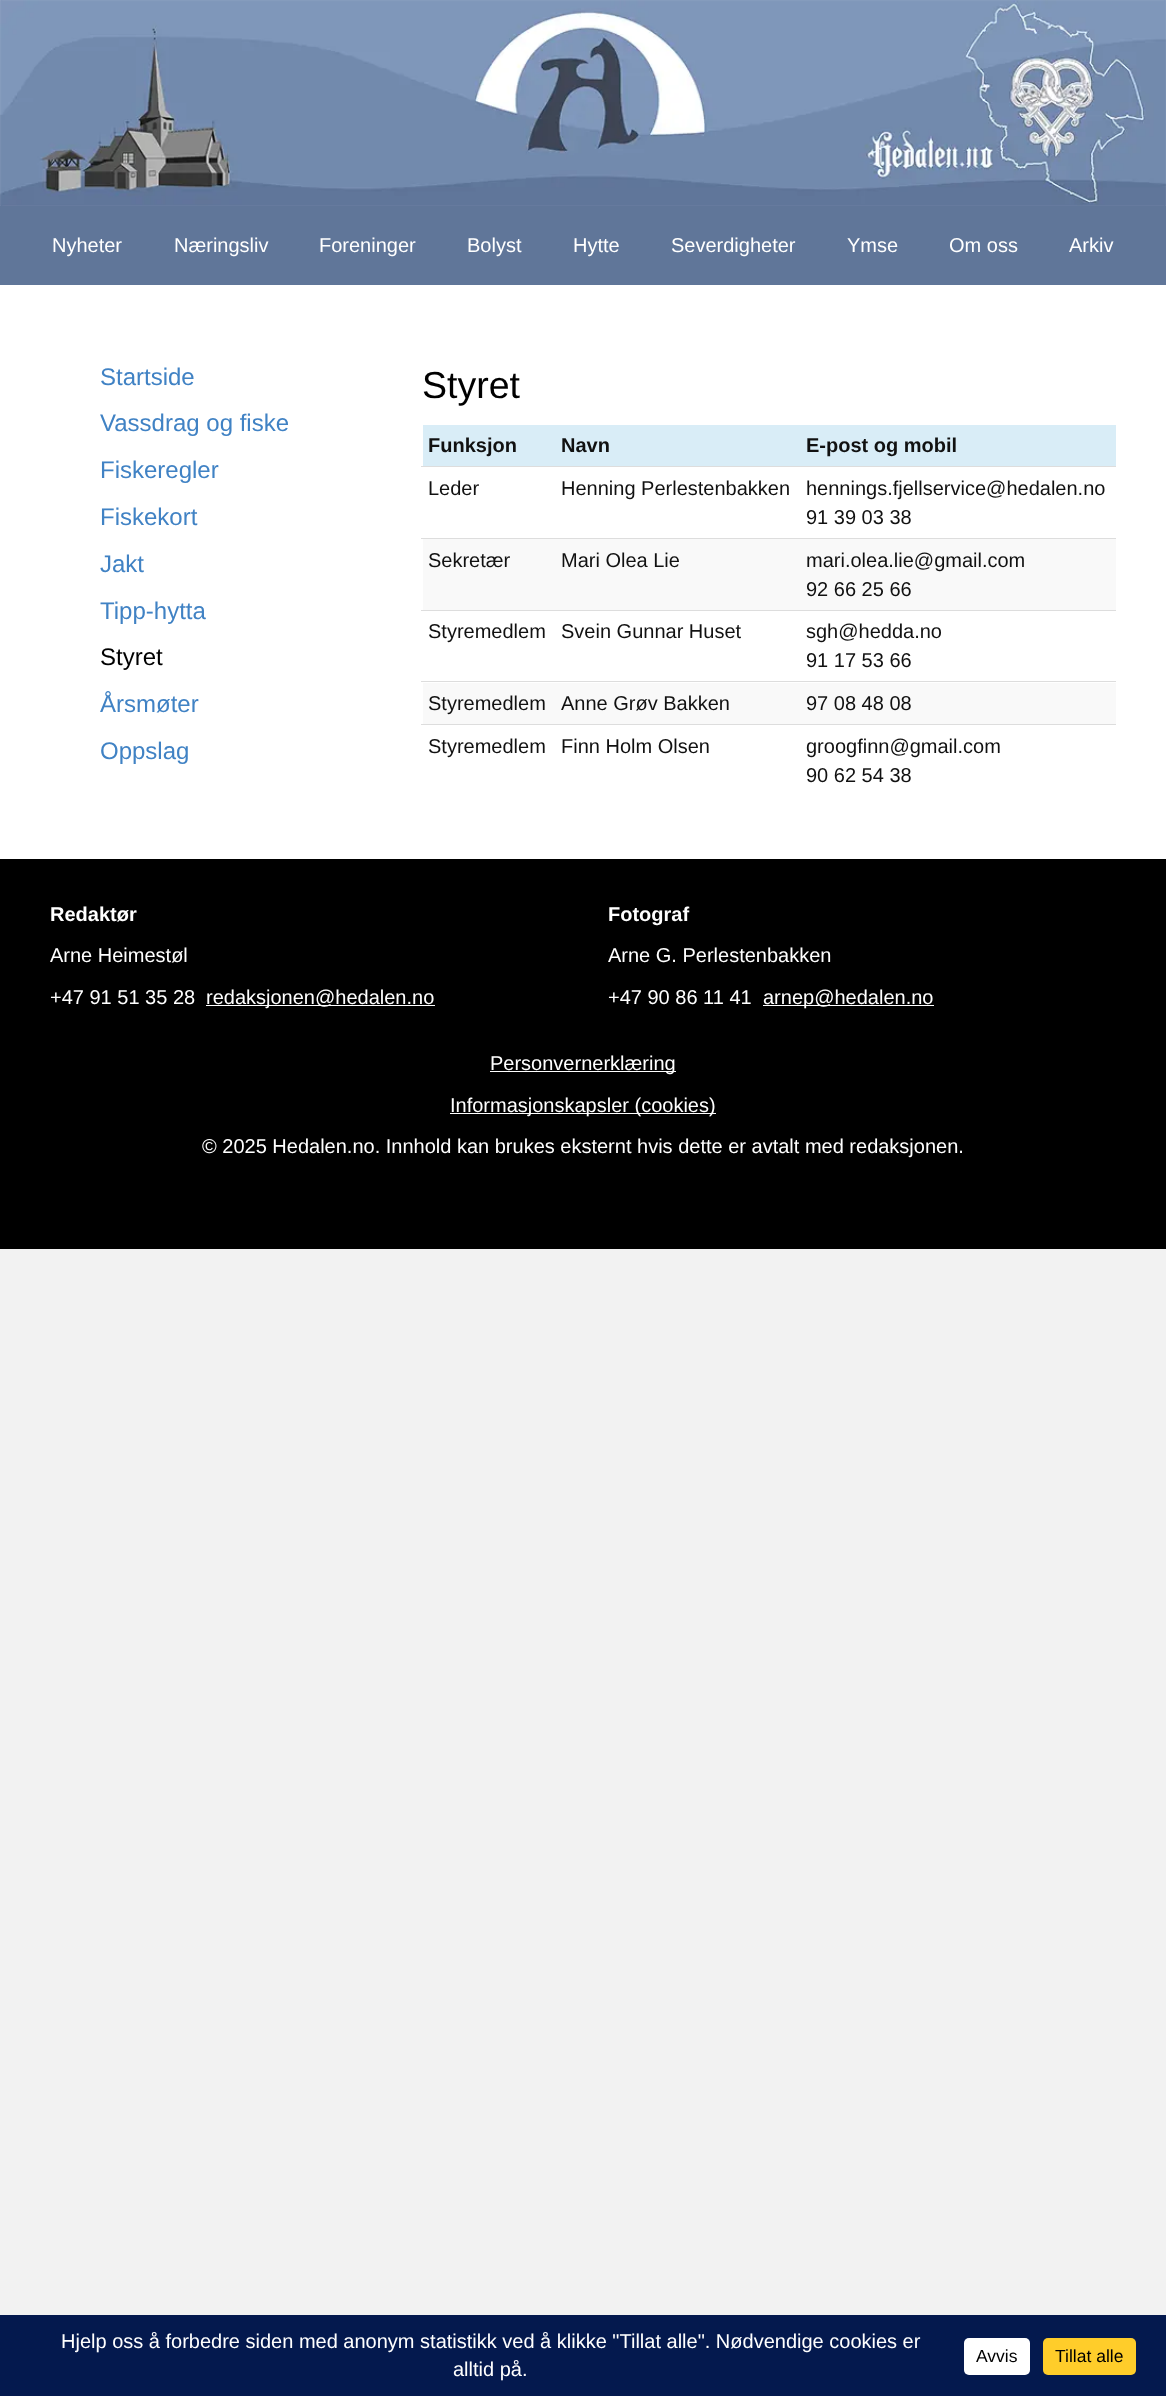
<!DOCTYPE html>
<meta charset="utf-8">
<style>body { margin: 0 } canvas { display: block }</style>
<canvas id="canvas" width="1166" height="2396"></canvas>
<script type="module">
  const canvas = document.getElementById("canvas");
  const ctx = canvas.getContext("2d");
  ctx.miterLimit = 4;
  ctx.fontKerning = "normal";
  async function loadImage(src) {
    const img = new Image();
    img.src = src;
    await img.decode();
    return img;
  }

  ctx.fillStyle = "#f2f2f2";
  ctx.fillRect(0, 0, 1166, 2396);
  ctx.drawImage(await loadImage("img1.png"), 0, 0, 1166, 206);
  ctx.fillStyle = "#607699";
  ctx.fillRect(0, 206, 1166, 79);
  ctx.font = "20px Liberation Sans";
  ctx.fillStyle = "#ffffff";
  ctx.fillText("Nyheter", 52, 252);
  ctx.fillText("Næringsliv", 174, 252);
  ctx.fillText("Foreninger", 319, 252);
  ctx.fillText("Bolyst", 467, 252);
  ctx.fillText("Hytte", 573, 252);
  ctx.fillText("Severdigheter", 671, 252);
  ctx.fillText("Ymse", 847, 252);
  ctx.fillText("Om oss", 949, 252);
  ctx.fillText("Arkiv", 1069, 252);
  ctx.fillRect(0, 285, 1166, 574);
  ctx.font = "24px Liberation Sans";
  ctx.fillStyle = "#4082c4";
  ctx.fillText("Startside", 100, 385);
  ctx.fillText("Vassdrag og fiske", 100, 431);
  ctx.fillText("Fiskeregler", 100, 478);
  ctx.fillText("Fiskekort", 100, 525);
  ctx.fillText("Jakt", 100, 572);
  ctx.fillText("Tipp-hytta", 100, 619);
  ctx.fillStyle = "#000000";
  ctx.fillText("Styret", 100, 665);
  ctx.fillStyle = "#4082c4";
  ctx.fillText("Årsmøter", 100, 712);
  ctx.fillText("Oppslag", 100, 759);
  ctx.font = "37.5px Liberation Sans";
  ctx.fillStyle = "#000000";
  ctx.fillText("Styret", 422, 398);
  ctx.fillStyle = "#d9edf7";
  ctx.fillRect(423, 425, 693, 41);
  ctx.font = "bold 20px Liberation Sans";
  ctx.fillStyle = "#111111";
  ctx.fillText("Funksjon", 428, 452);
  ctx.fillText("Navn", 561, 452);
  ctx.fillText("E-post og mobil", 806, 452);
  ctx.font = "20px Liberation Sans";
  ctx.fillText("Leder", 428, 495);
  ctx.fillText("Henning Perlestenbakken", 561, 495);
  ctx.fillStyle = "#dddddd";
  ctx.fillRect(421, 466, 695, 1);
  ctx.fillStyle = "#111111";
  ctx.fillText("hennings.fjellservice@hedalen.no", 806, 495);
  ctx.fillText("91 39 03 38", 806, 524);
  ctx.fillStyle = "#f9f9f9";
  ctx.fillRect(423, 539, 693, 71);
  ctx.fillStyle = "#111111";
  ctx.fillText("Sekretær", 428, 567);
  ctx.fillText("Mari Olea Lie", 561, 567);
  ctx.fillStyle = "#dddddd";
  ctx.fillRect(421, 538, 695, 1);
  ctx.fillStyle = "#111111";
  ctx.fillText("mari.olea.lie@gmail.com", 806, 567);
  ctx.fillText("92 66 25 66", 806, 596);
  ctx.fillText("Styremedlem", 428, 638);
  ctx.fillText("Svein Gunnar Huset", 561, 638);
  ctx.fillStyle = "#dddddd";
  ctx.fillRect(421, 610, 695, 1);
  ctx.fillStyle = "#111111";
  ctx.fillText("sgh@hedda.no", 806, 638);
  ctx.fillText("91 17 53 66", 806, 667);
  ctx.fillStyle = "#f9f9f9";
  ctx.fillRect(423, 683, 693, 41);
  ctx.fillStyle = "#111111";
  ctx.fillText("Styremedlem", 428, 710);
  ctx.fillText("Anne Grøv Bakken", 561, 710);
  ctx.fillStyle = "#dddddd";
  ctx.fillRect(421, 681, 695, 1);
  ctx.fillStyle = "#111111";
  ctx.fillText("97 08 48 08", 806, 710);
  ctx.fillText("Styremedlem", 428, 753);
  ctx.fillText("Finn Holm Olsen", 561, 753);
  ctx.fillStyle = "#dddddd";
  ctx.fillRect(421, 724, 695, 1);
  ctx.fillStyle = "#111111";
  ctx.fillText("groogfinn@gmail.com", 806, 753);
  ctx.fillText("90 62 54 38", 806, 782);
  ctx.fillStyle = "#000000";
  ctx.fillRect(0, 859, 1166, 390);
  ctx.font = "bold 20px Liberation Sans";
  ctx.fillStyle = "#ffffff";
  ctx.fillText("Redaktør", 50, 921);
  ctx.font = "20px Liberation Sans";
  ctx.fillText("Arne Heimestøl", 50, 962);
  ctx.fillText("+47 91 51 35 28", 50, 1004);
  ctx.fillRect(206, 1005, 229, 1);
  ctx.fillText("redaksjonen@hedalen.no", 206, 1004);
  ctx.font = "bold 20px Liberation Sans";
  ctx.fillText("Fotograf", 608, 921);
  ctx.font = "20px Liberation Sans";
  ctx.fillText("Arne G. Perlestenbakken", 608, 962);
  ctx.fillText("+47 90 86 11 41", 608, 1004);
  ctx.fillRect(763, 1005, 171, 1);
  ctx.fillText("arnep@hedalen.no", 763, 1004);
  ctx.fillRect(490, 1071, 186, 1);
  ctx.fillText("Personvernerklæring", 490, 1070);
  ctx.fillRect(450, 1113, 266, 1);
  ctx.fillText("Informasjonskapsler (cookies)", 450, 1112);
  ctx.fillText("© 2025 Hedalen.no. Innhold kan brukes eksternt hvis dette er avtalt med redaksjonen.", 202, 1153);
  ctx.fillStyle = "#04194e";
  ctx.fillRect(0, 2315, 1166, 81);
  ctx.fillStyle = "#ffffff";
  ctx.fillText("Hjelp oss å forbedre siden med anonym statistikk ved å klikke \"Tillat alle\". Nødvendige cookies er", 61, 2348);
  ctx.fillText("alltid på.", 453, 2376);
  ctx.beginPath();
  ctx.roundRect(964, 2338, 66, 37, 5);
  ctx.fill();
  ctx.font = "17.5px Liberation Sans";
  ctx.fillStyle = "#000000";
  ctx.fillText("Avvis", 976, 2362);
  ctx.fillStyle = "#ffcd2a";
  ctx.beginPath();
  ctx.roundRect(1043, 2338, 93, 37, 5);
  ctx.fill();
  ctx.fillStyle = "#000000";
  ctx.fillText("Tillat alle", 1055, 2362);
</script>
